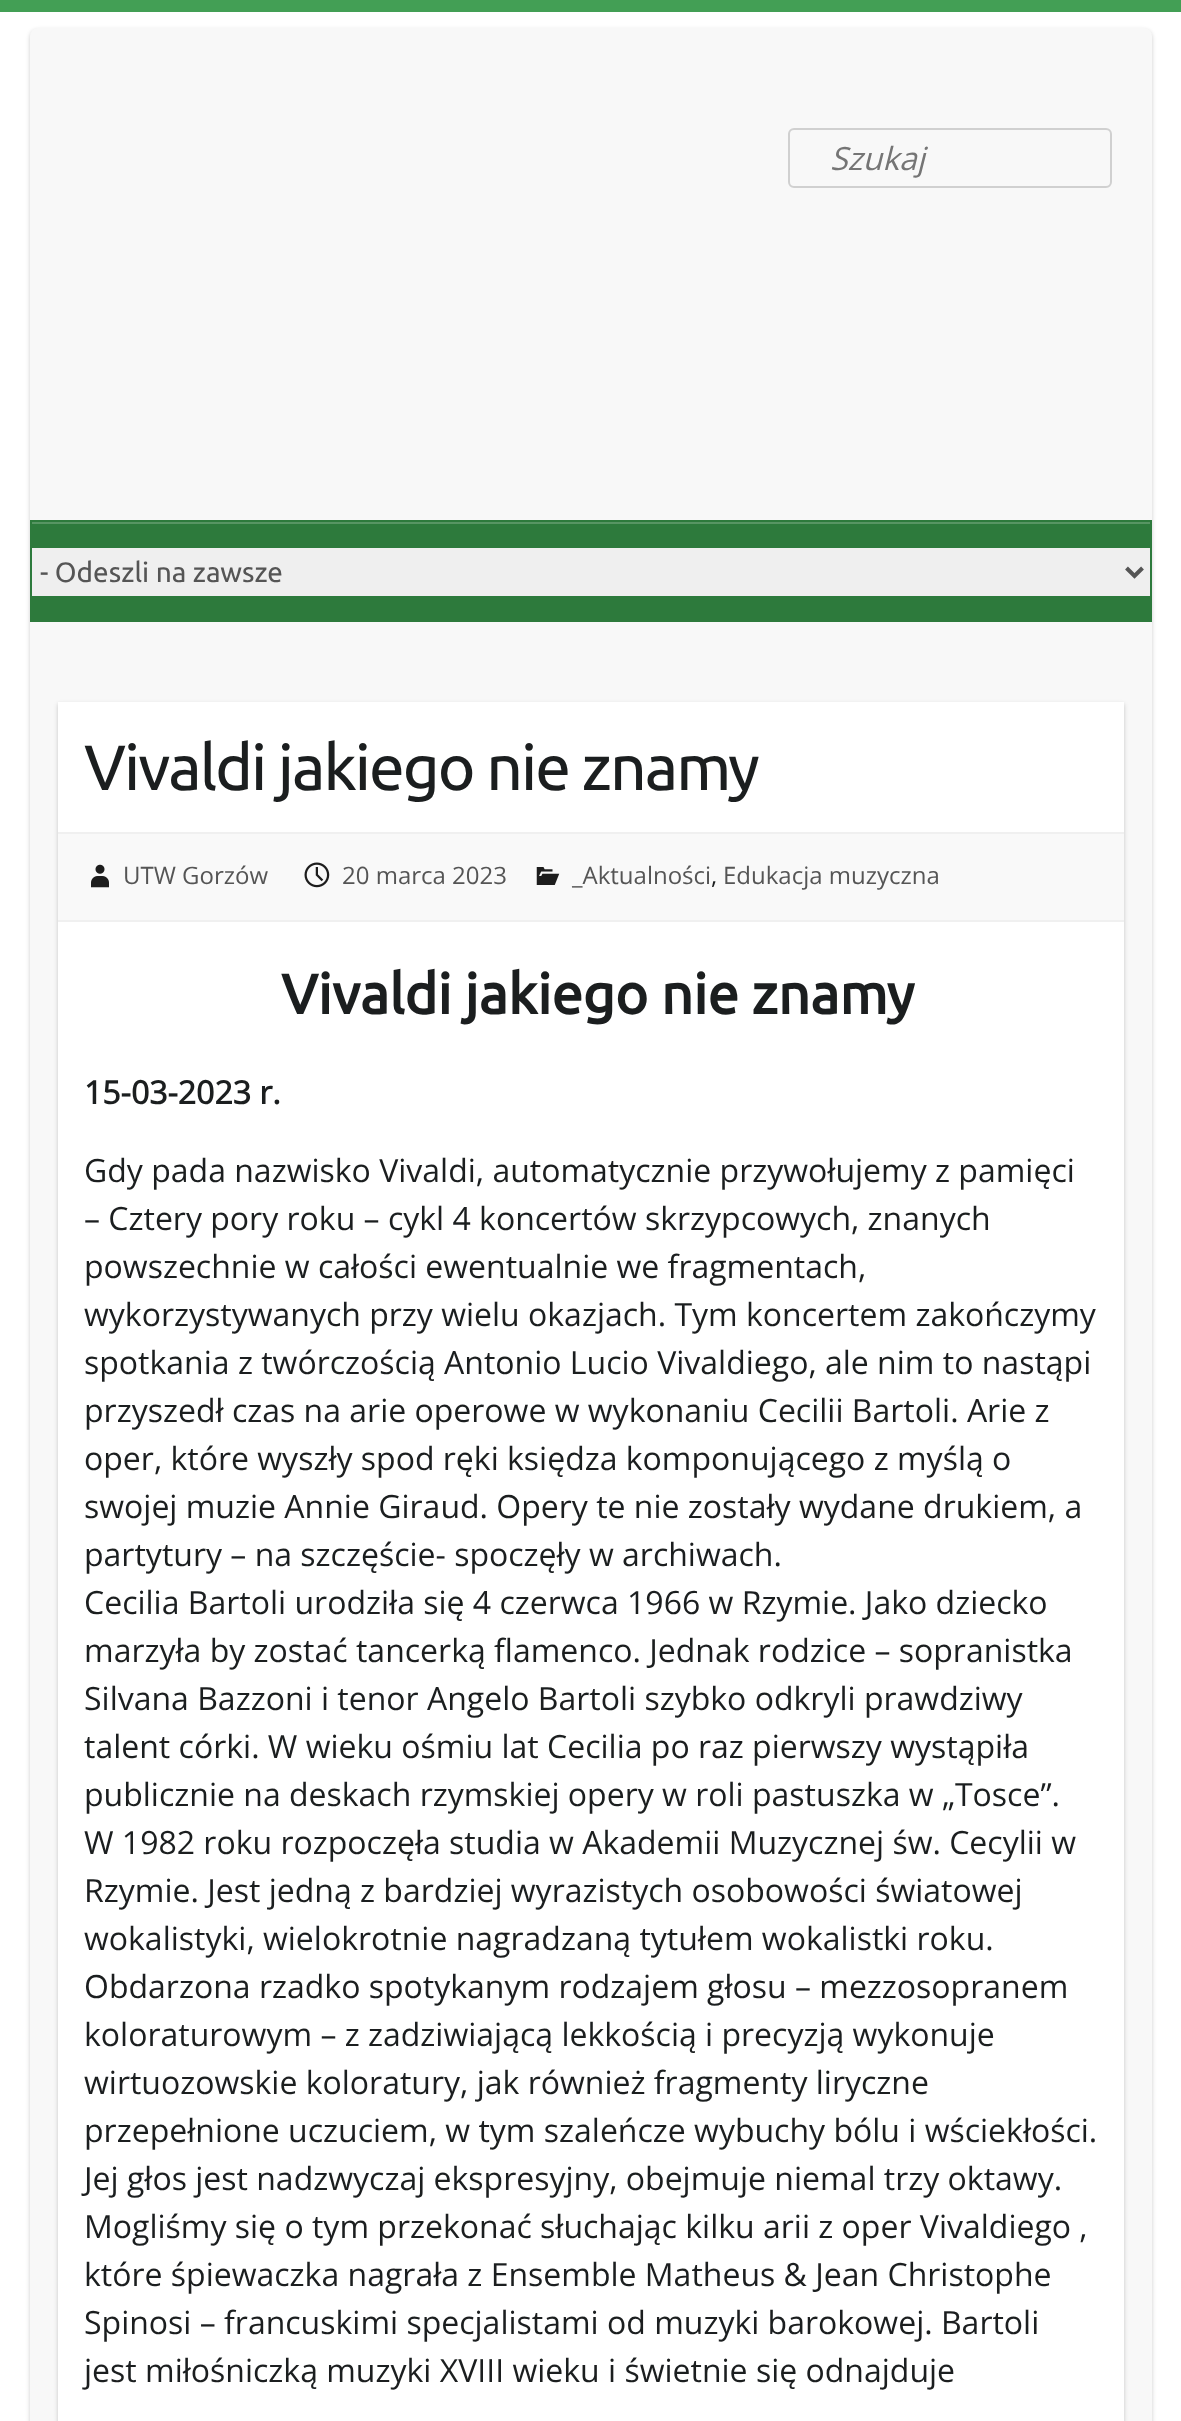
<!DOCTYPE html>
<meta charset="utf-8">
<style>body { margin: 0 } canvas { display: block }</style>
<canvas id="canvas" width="1181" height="2421"></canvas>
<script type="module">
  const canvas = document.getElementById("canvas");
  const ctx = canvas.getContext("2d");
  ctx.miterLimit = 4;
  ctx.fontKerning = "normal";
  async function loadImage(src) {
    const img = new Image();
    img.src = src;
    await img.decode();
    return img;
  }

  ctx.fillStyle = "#ffffff";
  ctx.fillRect(0, 0, 1181, 2421);
  ctx.fillStyle = "#439f55";
  ctx.fillRect(0, 0, 1181, 12);
  ctx.fillStyle = "rgba(0, 0, 0, 0.2)";
  ctx.filter = "blur(2px)";
  ctx.beginPath();
  ctx.roundRect(30, 30, 1122, 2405, 8);
  ctx.fill();
  ctx.filter = "none";
  ctx.fillStyle = "#f8f8f8";
  ctx.beginPath();
  ctx.roundRect(30, 28, 1122, 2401, 8);
  ctx.fill();
  ctx.beginPath();
  ctx.roundRect(789, 129, 322, 58, 5);
  ctx.strokeStyle = "#d0d0d0";
  ctx.lineWidth = 2;
  ctx.stroke();
  ctx.font = "italic 32px Open Sans";
  ctx.fillStyle = "#757575";
  ctx.fillText("Szukaj", 830, 170);
  ctx.fillStyle = "#2d7a3c";
  ctx.fillRect(30, 520, 1122, 102);
  ctx.fillStyle = "#579563";
  ctx.fillRect(32, 522, 1118, 2);
  ctx.fillStyle = "#efefef";
  ctx.fillRect(32, 548, 1118, 48);
  ctx.beginPath();
  ctx.moveTo(1126.5, 568);
  ctx.lineTo(1134.5, 576);
  ctx.lineTo(1142.5, 568);
  ctx.strokeStyle = "#555555";
  ctx.lineWidth = 4;
  ctx.stroke();
  ctx.font = "28px Ubuntu";
  ctx.fillStyle = "#555555";
  ctx.fillText("- Odeszli na zawsze", 40, 582);
  ctx.fillStyle = "rgba(0, 0, 0, 0.2)";
  ctx.filter = "blur(2px)";
  ctx.beginPath();
  ctx.rect(58, 704, 1066, 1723);
  ctx.fill();
  ctx.filter = "none";
  ctx.fillStyle = "#ffffff";
  ctx.fillRect(58, 702, 1066, 1719);
  ctx.letterSpacing = "-2px";
  ctx.font = "64px Ubuntu";
  ctx.fillStyle = "#1b1e1f";
  ctx.fillText("Vivaldi jakiego nie znamy", 84, 790);
  ctx.fillStyle = "#f9f9f9";
  ctx.fillRect(58, 834, 1066, 86);
  ctx.fillStyle = "#f0f0f0";
  ctx.fillRect(58, 832, 1066, 2);
  ctx.fillRect(58, 920, 1066, 2);
  ctx.drawImage(await loadImage("img1.png"), 91, 864, 18, 24);
  ctx.letterSpacing = "0px";
  ctx.font = "24px Open Sans";
  ctx.fillStyle = "#555555";
  ctx.fillText("UTW Gorzów", 123, 884);
  ctx.drawImage(await loadImage("img2.png"), 304, 862, 26, 26);
  ctx.fillText("20 marca 2023", 342, 884);
  ctx.drawImage(await loadImage("img3.png"), 536, 867, 24, 18);
  ctx.fillText("_Aktualności", 572, 884);
  ctx.fillStyle = "#1b1e1f";
  ctx.fillText(",", 711, 884);
  ctx.fillStyle = "#555555";
  ctx.fillText("Edukacja muzyczna", 723, 884);
  ctx.font = "bold 56px Ubuntu";
  ctx.fillStyle = "#1b1e1f";
  ctx.fillText("Vivaldi jakiego nie znamy", 281, 1014);
  ctx.font = "bold 32px Open Sans";
  ctx.fillText("15-03-2023 r.", 84, 1104);
  ctx.font = "32px Open Sans";
  ctx.fillText("Gdy pada nazwisko Vivaldi, automatycznie przywołujemy z pamięci", 84, 1182);
  ctx.fillText("– Cztery pory roku – cykl 4 koncertów skrzypcowych, znanych", 84, 1230);
  ctx.fillText("powszechnie w całości ewentualnie we fragmentach,", 84, 1278);
  ctx.fillText("wykorzystywanych przy wielu okazjach. Tym koncertem zakończymy", 84, 1326);
  ctx.fillText("spotkania z twórczością Antonio Lucio Vivaldiego, ale nim to nastąpi", 84, 1374);
  ctx.fillText("przyszedł czas na arie operowe w wykonaniu Cecilii Bartoli. Arie z", 84, 1422);
  ctx.fillText("oper, które wyszły spod ręki księdza komponującego z myślą o", 84, 1470);
  ctx.fillText("swojej muzie Annie Giraud. Opery te nie zostały wydane drukiem, a", 84, 1518);
  ctx.fillText("partytury – na szczęście- spoczęły w archiwach.", 84, 1566);
  ctx.fillText("Cecilia Bartoli urodziła się 4 czerwca 1966 w Rzymie. Jako dziecko", 84, 1614);
  ctx.fillText("marzyła by zostać tancerką flamenco. Jednak rodzice – sopranistka", 84, 1662);
  ctx.fillText("Silvana Bazzoni i tenor Angelo Bartoli szybko odkryli prawdziwy", 84, 1710);
  ctx.fillText("talent córki. W wieku ośmiu lat Cecilia po raz pierwszy wystąpiła", 84, 1758);
  ctx.fillText("publicznie na deskach rzymskiej opery w roli pastuszka w „Tosce”.", 84, 1806);
  ctx.fillText("W 1982 roku rozpoczęła studia w Akademii Muzycznej św. Cecylii w", 84, 1854);
  ctx.fillText("Rzymie. Jest jedną z bardziej wyrazistych osobowości światowej", 84, 1902);
  ctx.fillText("wokalistyki, wielokrotnie nagradzaną tytułem wokalistki roku.", 84, 1950);
  ctx.fillText("Obdarzona rzadko spotykanym rodzajem głosu – mezzosopranem", 84, 1998);
  ctx.fillText("koloraturowym – z zadziwiającą lekkością i precyzją wykonuje", 84, 2046);
  ctx.fillText("wirtuozowskie koloratury, jak również fragmenty liryczne", 84, 2094);
  ctx.fillText("przepełnione uczuciem, w tym szaleńcze wybuchy bólu i wściekłości.", 84, 2142);
  ctx.fillText("Jej głos jest nadzwyczaj ekspresyjny, obejmuje niemal trzy oktawy.", 84, 2190);
  ctx.fillText("Mogliśmy się o tym przekonać słuchając kilku arii z oper Vivaldiego ,", 84, 2238);
  ctx.fillText("które śpiewaczka nagrała z Ensemble Matheus & Jean Christophe", 84, 2286);
  ctx.fillText("Spinosi – francuskimi specjalistami od muzyki barokowej. Bartoli", 84, 2334);
  ctx.fillText("jest miłośniczką muzyki XVIII wieku i świetnie się odnajduje", 84, 2382);
</script>
